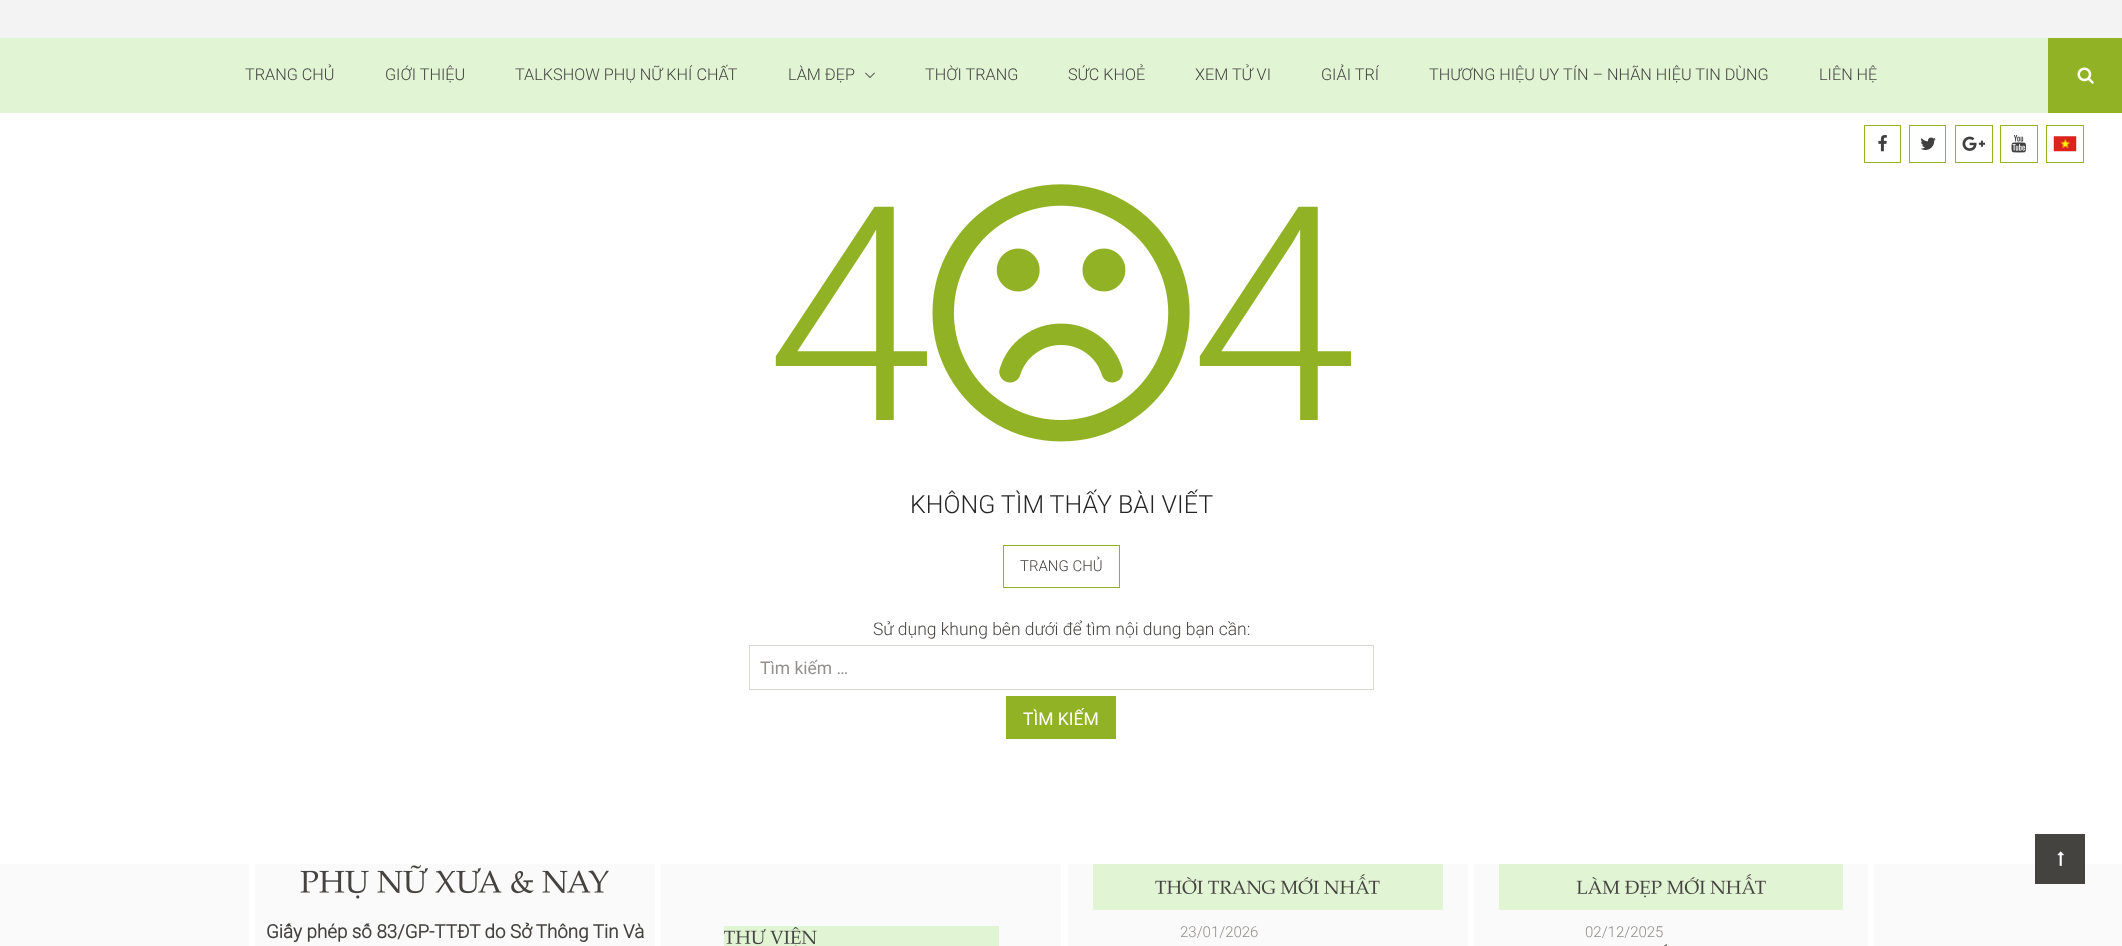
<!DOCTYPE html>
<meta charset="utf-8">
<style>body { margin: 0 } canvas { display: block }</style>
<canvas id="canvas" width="2122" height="946"></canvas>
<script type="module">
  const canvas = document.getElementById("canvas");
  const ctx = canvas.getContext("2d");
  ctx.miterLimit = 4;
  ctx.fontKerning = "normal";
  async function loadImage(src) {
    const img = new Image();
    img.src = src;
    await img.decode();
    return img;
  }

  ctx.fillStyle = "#ffffff";
  ctx.fillRect(0, 0, 2122, 946);
  ctx.fillStyle = "#f3f3f3";
  ctx.fillRect(0, 0, 2122, 38);
  ctx.fillStyle = "#e1f5d4";
  ctx.fillRect(0, 38, 2048, 75);
  ctx.font = "300 16.25px Roboto";
  ctx.fillStyle = "#454340";
  ctx.fillText("TRANG CHỦ", 245, 80);
  ctx.fillText("GIỚI THIỆU", 385, 80);
  ctx.fillText("TALKSHOW PHỤ NỮ KHÍ CHẤT", 515, 80);
  ctx.fillText("LÀM ĐẸP", 788, 80);
  ctx.drawImage(await loadImage("img1.png"), 865, 72, 10, 6);
  ctx.fillText("THỜI TRANG", 925, 80);
  ctx.fillText("SỨC KHOẺ", 1068, 80);
  ctx.fillText("XEM TỬ VI", 1195, 80);
  ctx.fillText("GIẢI TRÍ", 1321, 80);
  ctx.fillText("THƯƠNG HIỆU UY TÍN – NHÃN HIỆU TIN DÙNG", 1429, 80);
  ctx.fillText("LIÊN HỆ", 1819, 80);
  ctx.fillStyle = "#91b225";
  ctx.fillRect(2048, 38, 74, 75);
  ctx.drawImage(await loadImage("img2.png"), 2077, 67, 17, 17);
  ctx.strokeStyle = "#91b225";
  ctx.strokeRect(1864.5, 125.5, 36, 37);
  ctx.drawImage(await loadImage("img3.png"), 1878, 135, 9, 17);
  ctx.strokeRect(1909.5, 125.5, 36, 37);
  ctx.drawImage(await loadImage("img4.png"), 1920, 137, 16, 13);
  ctx.strokeRect(1955.5, 125.5, 37, 37);
  ctx.drawImage(await loadImage("img5.png"), 1962, 136, 23, 15);
  ctx.strokeRect(2000.5, 125.5, 37, 37);
  ctx.drawImage(await loadImage("img6.png"), 2011, 135, 15, 18);
  ctx.strokeRect(2046.5, 125.5, 37, 37);
  ctx.drawImage(await loadImage("img7.png"), 2053, 136, 24, 16);
  ctx.font = "300 300px Roboto";
  ctx.fillText("4", 766, 420);
  ctx.drawImage(await loadImage("img8.png"), 932, 184, 258, 258);
  ctx.fillText("4", 1190, 420);
  ctx.font = "300 25px Roboto";
  ctx.fillStyle = "#262626";
  ctx.fillText("KHÔNG TÌM THẤY BÀI VIẾT", 910, 513);
  ctx.strokeRect(1003.5, 545.5, 116, 42);
  ctx.font = "300 15px Roboto";
  ctx.fillStyle = "#454340";
  ctx.fillText("TRANG CHỦ", 1020, 571);
  ctx.font = "300 17.5px Roboto";
  ctx.fillText("Sử dụng khung bên dưới để tìm nội dung bạn cần:", 873, 635);
  ctx.strokeStyle = "#dad7d3";
  ctx.strokeRect(749.5, 645.5, 624, 44);
  ctx.font = "17.5px Roboto";
  ctx.fillStyle = "#93908d";
  ctx.fillText("Tìm kiếm …", 760, 674);
  ctx.fillStyle = "#91b225";
  ctx.fillRect(1006, 696, 110, 43);
  ctx.fillStyle = "#ffffff";
  ctx.fillText("TÌM KIẾM", 1023, 725);
  ctx.fillStyle = "#fafafa";
  ctx.fillRect(0, 864, 2122, 82);
  ctx.fillStyle = "#454340";
  ctx.fillRect(2035, 834, 50, 50);
  ctx.drawImage(await loadImage("img9.png"), 2057, 851, 7, 15);
  ctx.fillStyle = "#ffffff";
  ctx.fillRect(249, 864, 6, 82);
  ctx.drawImage(await loadImage("img10.png"), 300, 865, 309, 34);
  ctx.font = "bold 18.75px Roboto";
  ctx.fillStyle = "#454340";
  ctx.fillText("Giấy phép số 83/GP-TTĐT do Sở Thông Tin Và", 266, 938);
  ctx.fillStyle = "#ffffff";
  ctx.fillRect(655, 864, 6, 82);
  ctx.fillStyle = "#e1f5d4";
  ctx.fillRect(724, 926, 275, 20);
  ctx.drawImage(await loadImage("img11.png"), 724, 927, 93, 19);
  ctx.fillStyle = "#ffffff";
  ctx.fillRect(1061, 864, 7, 82);
  ctx.fillStyle = "#e1f5d4";
  ctx.fillRect(1093, 864, 350, 46);
  ctx.drawImage(await loadImage("img12.png"), 1155, 874, 225, 21);
  ctx.font = "300 15px Roboto";
  ctx.fillStyle = "#93908d";
  ctx.fillText("23/01/2026", 1180, 937);
  ctx.fillStyle = "#ffffff";
  ctx.fillRect(1868, 864, 6, 82);
  ctx.fillRect(1468, 864, 6, 82);
  ctx.fillStyle = "#e1f5d4";
  ctx.fillRect(1499, 864, 344, 46);
  ctx.drawImage(await loadImage("img13.png"), 1576, 874, 190, 24);
  ctx.fillStyle = "#93908d";
  ctx.fillText("02/12/2025", 1585, 937);
  ctx.drawImage(await loadImage("img14.png"), 1664, 944, 4, 2);
</script>
